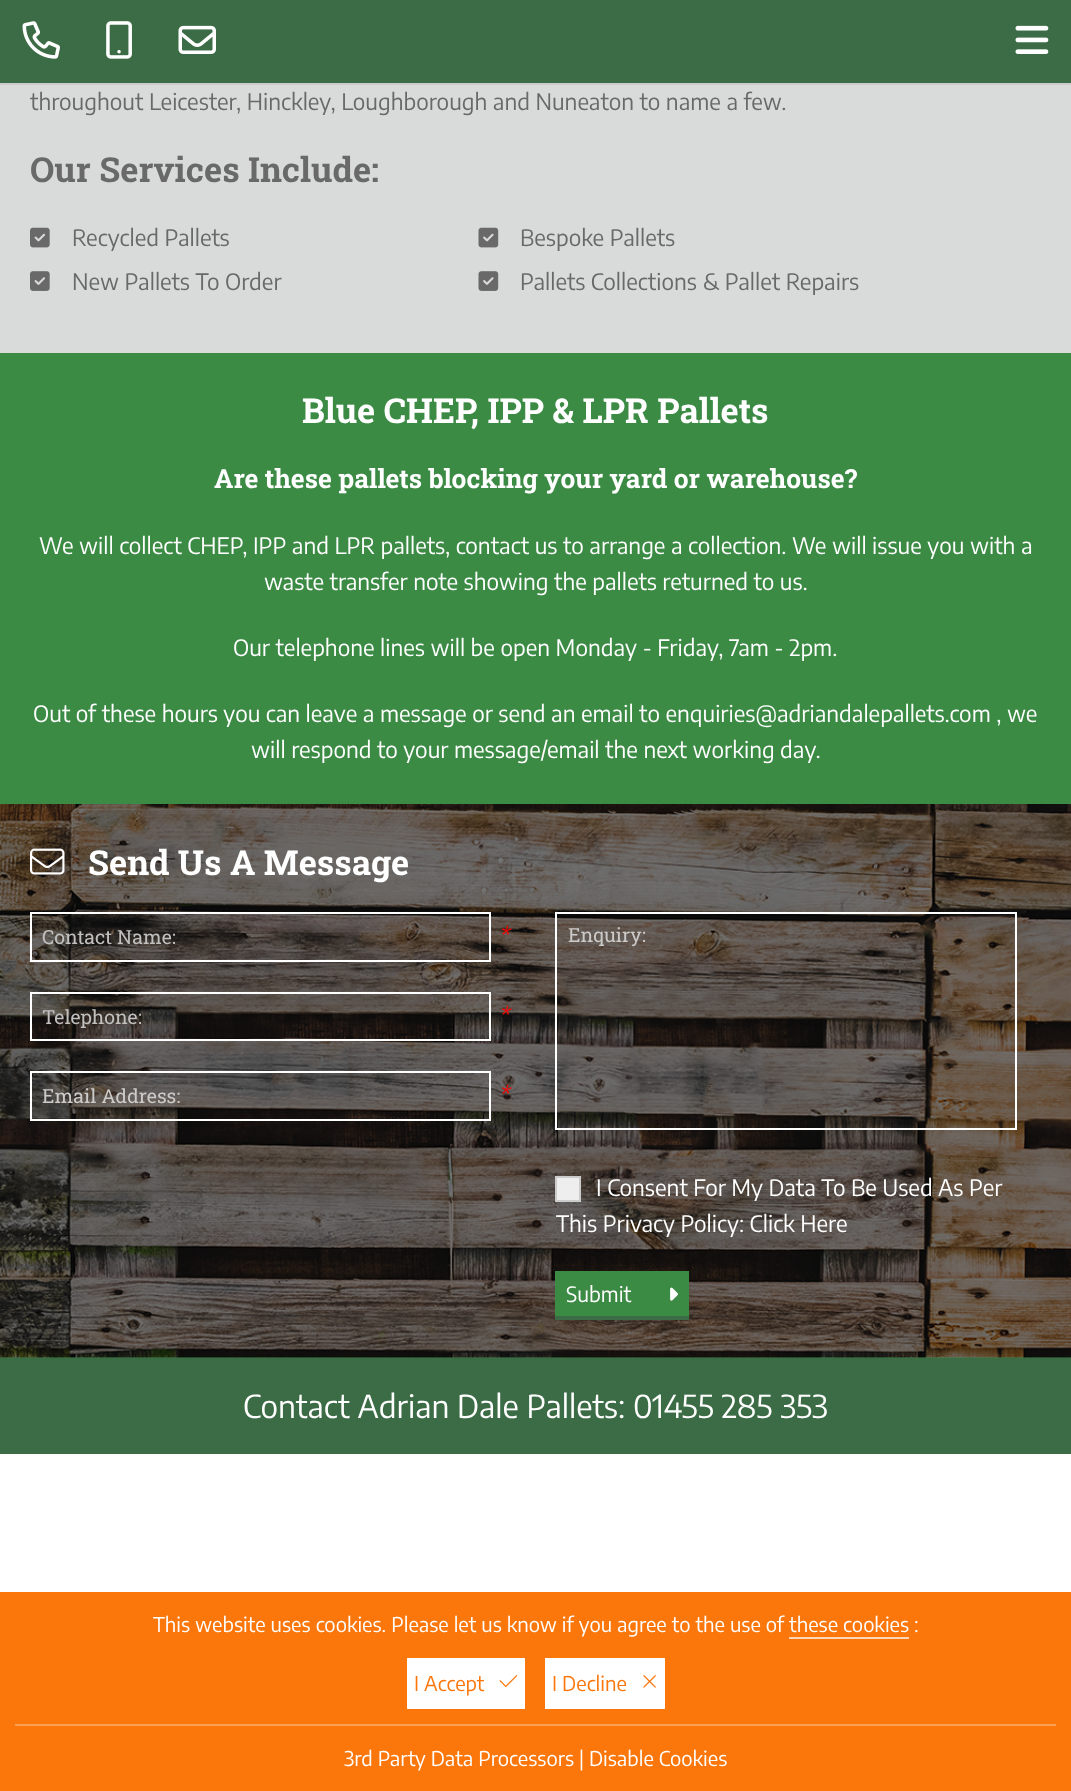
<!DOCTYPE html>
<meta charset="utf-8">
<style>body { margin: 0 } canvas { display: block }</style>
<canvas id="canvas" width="1071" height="1791"></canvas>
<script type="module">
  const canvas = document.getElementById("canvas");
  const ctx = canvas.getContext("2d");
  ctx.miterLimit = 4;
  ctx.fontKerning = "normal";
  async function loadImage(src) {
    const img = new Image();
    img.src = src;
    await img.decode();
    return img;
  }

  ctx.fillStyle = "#ffffff";
  ctx.fillRect(0, 0, 1071, 1791);
  ctx.fillStyle = "#3c6c45";
  ctx.fillRect(0, 0, 1071, 83);
  ctx.fillStyle = "#cccccc";
  ctx.fillRect(0, 83, 1071, 2);
  ctx.drawImage(await loadImage("img1.png"), 22, 21, 38, 38);
  ctx.drawImage(await loadImage("img2.png"), 106, 21, 26, 38);
  ctx.drawImage(await loadImage("img3.png"), 178, 25, 38, 29);
  ctx.drawImage(await loadImage("img4.png"), 1015, 25, 34, 29);
  ctx.fillStyle = "#d9dada";
  ctx.fillRect(0, 85, 1071, 268);
  ctx.font = "100 22.5px Encode Sans Condensed";
  ctx.fillStyle = "#696969";
  ctx.fillText("throughout Leicester, Hinckley, Loughborough and Nuneaton to name a few.", 30, 110);
  ctx.font = "bold 34.5px Roboto Slab";
  ctx.fillText("Our Services Include:", 30, 182);
  ctx.drawImage(await loadImage("img5.png"), 30, 227, 20, 21);
  ctx.font = "100 22.5px Encode Sans Condensed";
  ctx.fillText("Recycled Pallets", 72, 246);
  ctx.drawImage(await loadImage("img6.png"), 478, 227, 21, 21);
  ctx.fillText("Bespoke Pallets", 520, 246);
  ctx.drawImage(await loadImage("img7.png"), 30, 271, 20, 20);
  ctx.fillText("New Pallets To Order", 72, 290);
  ctx.drawImage(await loadImage("img8.png"), 478, 271, 21, 20);
  ctx.fillText("Pallets Collections & Pallet Repairs", 520, 290);
  ctx.fillStyle = "#3c8b45";
  ctx.fillRect(0, 353, 1071, 451);
  ctx.font = "bold 34.5px Roboto Slab";
  ctx.fillStyle = "#ffffff";
  ctx.fillText("Blue CHEP, IPP & LPR Pallets", 302, 423);
  ctx.font = "bold 26.3px Roboto Slab";
  ctx.fillText("Are these pallets blocking your yard or warehouse?", 214, 488);
  ctx.font = "100 22.5px Encode Sans Condensed";
  ctx.fillText("We will collect CHEP, IPP and LPR pallets, contact us to arrange a collection. We will issue you with a", 39, 554);
  ctx.fillText("waste transfer note showing the pallets returned to us.", 264, 590);
  ctx.fillText("Our telephone lines will be open Monday - Friday, 7am - 2pm.", 233, 656);
  ctx.fillText("Out of these hours you can leave a message or send an email to enquiries@adriandalepallets.com , we", 33, 722);
  ctx.fillText("will respond to your message/email the next working day.", 251, 758);
  ctx.fillStyle = "#3c8b45";
  ctx.fillRect(0, 1357, 1071, 1);
  ctx.drawImage(await loadImage("img9.png"), 0, 804, 1071, 554);
  ctx.drawImage(await loadImage("img10.png"), 30, 848, 35, 27);
  ctx.font = "bold 34.5px Roboto Slab";
  ctx.fillStyle = "#ffffff";
  ctx.fillText("Send Us A Message", 88, 875);
  ctx.strokeStyle = "#ffffff";
  ctx.lineWidth = 2;
  ctx.strokeRect(31, 913, 459, 48);
  ctx.font = "19.5px Roboto Slab";
  ctx.fillStyle = "#c1c0bf";
  ctx.fillText("Contact Name:", 42, 944);
  ctx.font = "italic 100 22.5px Encode Sans Condensed";
  ctx.fillStyle = "#ff0000";
  ctx.fillText("*", 498, 944);
  ctx.strokeRect(31, 993, 459, 47);
  ctx.font = "19.5px Roboto Slab";
  ctx.fillStyle = "#c1c0bf";
  ctx.fillText("Telephone:", 42, 1024);
  ctx.font = "italic 100 22.5px Encode Sans Condensed";
  ctx.fillStyle = "#ff0000";
  ctx.fillText("*", 498, 1024);
  ctx.strokeRect(31, 1072, 459, 48);
  ctx.font = "19.5px Roboto Slab";
  ctx.fillStyle = "#cdcbca";
  ctx.fillText("Email Address:", 42, 1103);
  ctx.font = "italic 100 22.5px Encode Sans Condensed";
  ctx.fillStyle = "#ff0000";
  ctx.fillText("*", 498, 1103);
  ctx.strokeRect(556, 913, 460, 216);
  ctx.font = "19.5px Roboto Slab";
  ctx.fillStyle = "#cdcbca";
  ctx.fillText("Enquiry:", 568, 942);
  ctx.fillStyle = "#eeeeee";
  ctx.beginPath();
  ctx.rect(556, 1177, 24, 24);
  ctx.fill();
  ctx.strokeStyle = "#cccccc";
  ctx.stroke();
  ctx.font = "100 22.5px Encode Sans Condensed";
  ctx.fillStyle = "#ffffff";
  ctx.fillText("I Consent For My Data To Be Used As Per", 596, 1196);
  ctx.fillText("This Privacy Policy: Click Here", 556, 1232);
  ctx.fillStyle = "#3c8b45";
  ctx.fillRect(555, 1271, 134, 45);
  ctx.fillStyle = "#3c6c45";
  ctx.fillRect(555, 1316, 134, 4);
  ctx.font = "100 21px Encode Sans Condensed";
  ctx.fillStyle = "#ffffff";
  ctx.fillText("Submit", 566, 1302);
  ctx.drawImage(await loadImage("img11.png"), 670, 1287, 8, 14);
  ctx.fillStyle = "#3c6c45";
  ctx.fillRect(0, 1358, 1071, 96);
  ctx.font = "100 31.5px Encode Sans Condensed";
  ctx.fillStyle = "#ffffff";
  ctx.fillText("Contact Adrian Dale Pallets: 01455 285 353", 243, 1418);
  ctx.fillStyle = "#fb770c";
  ctx.fillRect(0, 1592, 1071, 199);
  ctx.fillStyle = "#fca055";
  ctx.fillRect(15, 1724, 1041, 2);
  ctx.font = "100 20.25px Encode Sans Condensed";
  ctx.fillStyle = "#ffffff";
  ctx.fillText("This website uses cookies. Please let us know if you agree to the use of these cookies :", 153, 1632);
  ctx.fillStyle = "#fed6b6";
  ctx.fillRect(789, 1637, 120, 2);
  ctx.fillStyle = "#ffffff";
  ctx.fillRect(407, 1658, 118, 51);
  ctx.fillStyle = "#fb770c";
  ctx.fillText("I Accept", 414, 1691);
  ctx.drawImage(await loadImage("img12.png"), 499, 1675, 19, 12);
  ctx.fillStyle = "#ffffff";
  ctx.fillRect(545, 1658, 120, 51);
  ctx.fillStyle = "#fb770c";
  ctx.fillText("I Decline", 552, 1691);
  ctx.drawImage(await loadImage("img13.png"), 643, 1675, 13, 13);
  ctx.fillStyle = "#ffffff";
  ctx.fillText("3rd Party Data Processors | Disable Cookies", 344, 1766);
</script>
